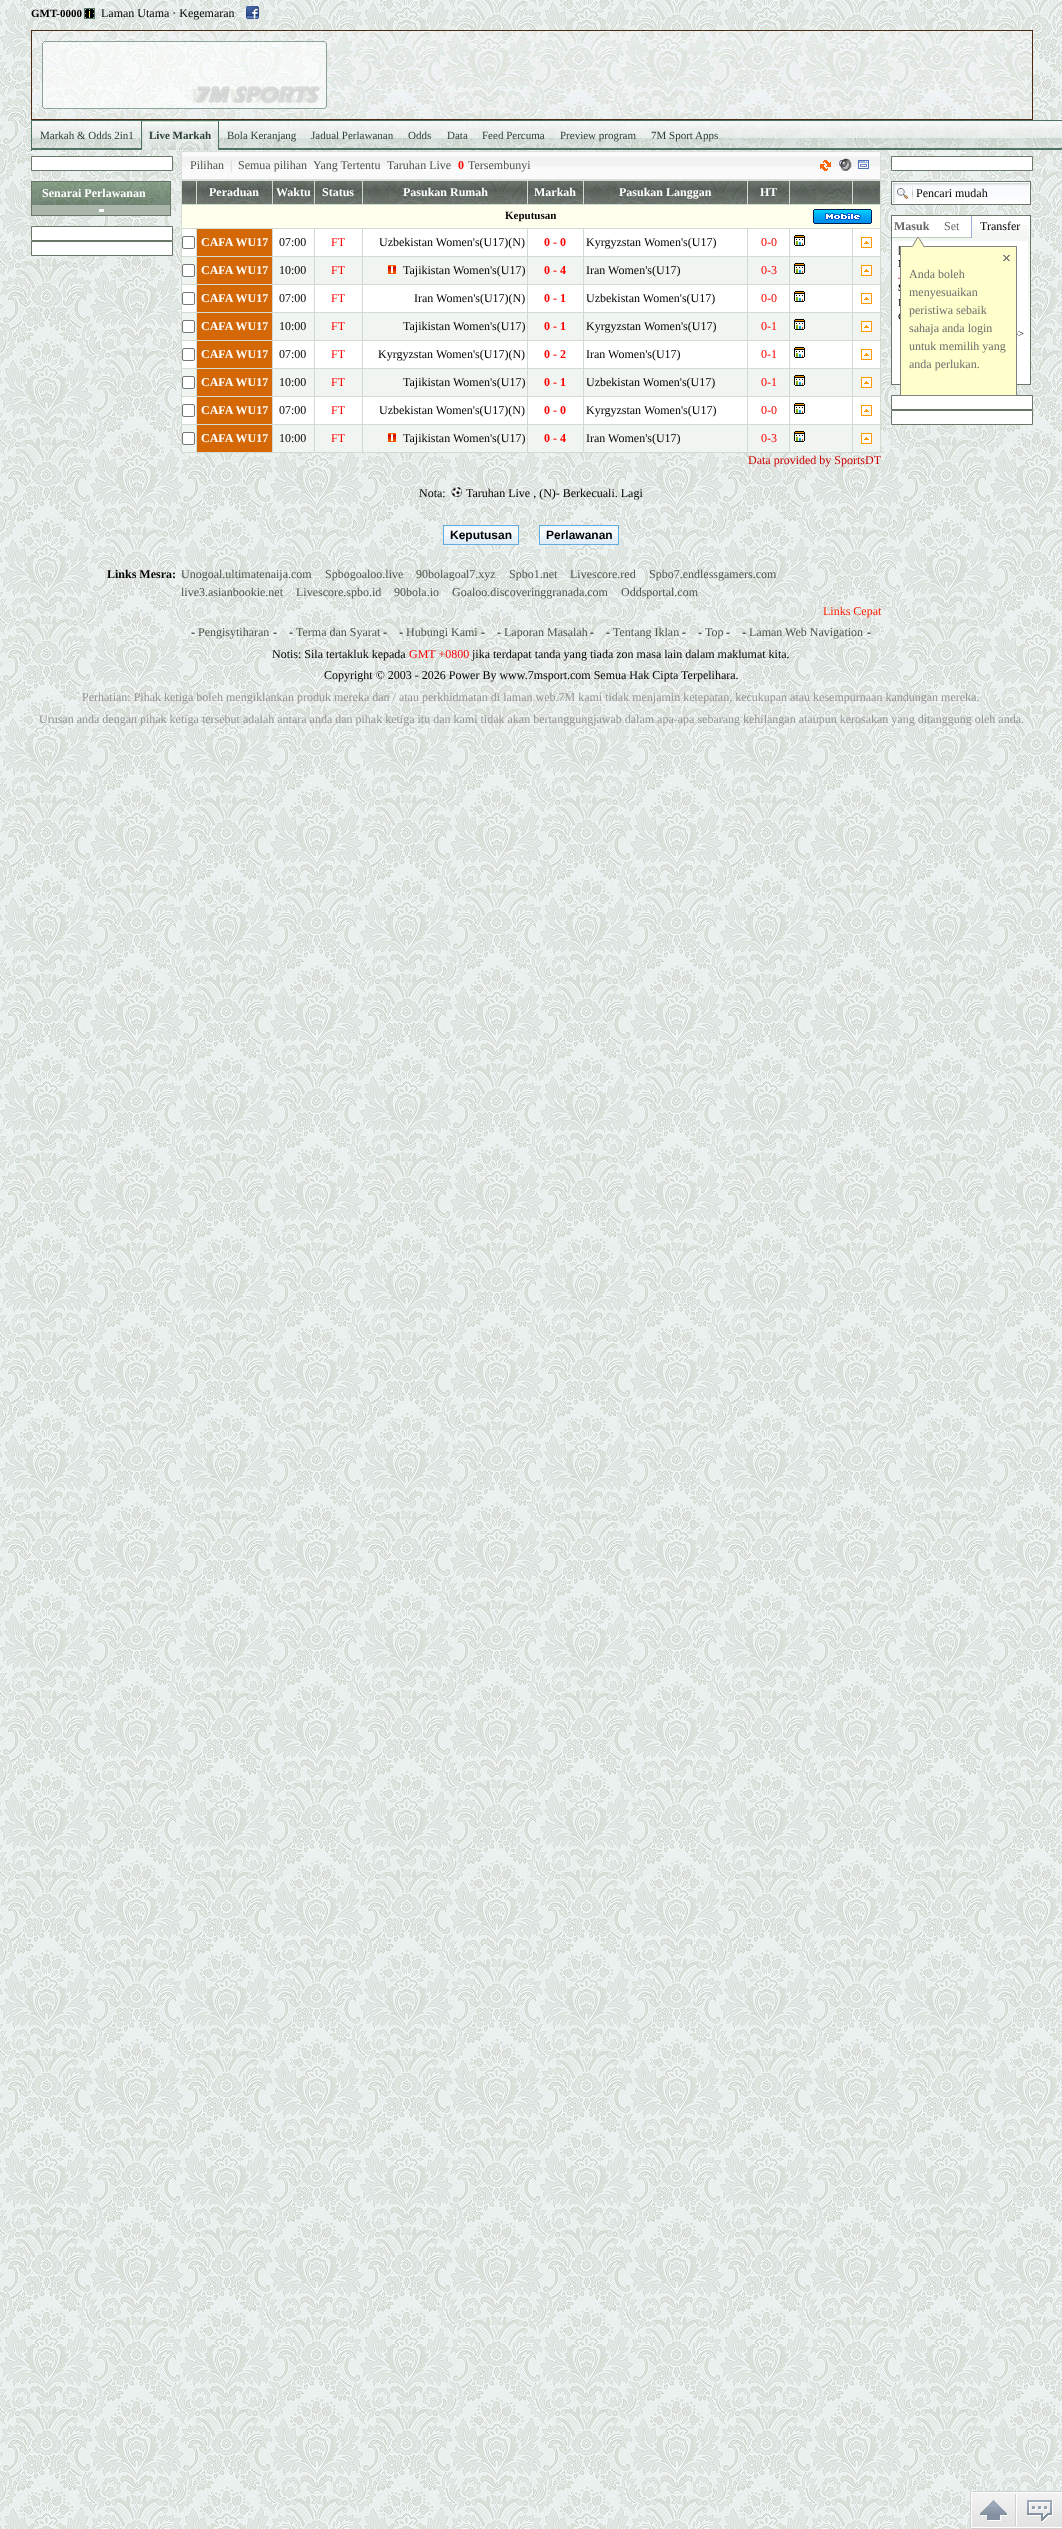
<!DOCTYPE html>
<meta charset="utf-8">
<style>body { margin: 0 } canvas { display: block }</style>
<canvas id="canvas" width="1062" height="2529"></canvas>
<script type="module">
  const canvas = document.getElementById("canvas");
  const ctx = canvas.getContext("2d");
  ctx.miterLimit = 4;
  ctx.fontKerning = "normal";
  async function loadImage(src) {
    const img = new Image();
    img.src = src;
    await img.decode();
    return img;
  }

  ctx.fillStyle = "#ffffff";
  ctx.fillRect(0, 0, 1062, 2529);
  ctx.drawImage(await loadImage("img1.png"), 0, 0, 1062, 2529);
  ctx.font = "bold 11px Liberation Serif";
  ctx.fillStyle = "#000000";
  ctx.fillText("GMT-0000", 31, 17);
  ctx.drawImage(await loadImage("img2.png"), 84, 8, 11, 11);
  ctx.font = "12px Liberation Serif";
  ctx.fillText("Laman Utama · Kegemaran", 101, 17);
  ctx.drawImage(await loadImage("img3.png"), 246, 6, 13, 13);
  ctx.drawImage(await loadImage("img4.png"), 32, 31, 1000, 88);
  ctx.strokeStyle = "#4e2912";
  ctx.strokeRect(31.5, 30.5, 1001, 89);
  ctx.drawImage(await loadImage("img5.png"), 42, 41, 285, 68);
  ctx.fillStyle = "#4e7260";
  ctx.fillRect(31, 120, 1031, 1);
  ctx.fillRect(31, 120, 1, 31);
  ctx.drawImage(await loadImage("img6.png"), 32, 121, 1030, 29);
  ctx.font = "11px Liberation Serif";
  ctx.fillStyle = "#2c3f35";
  ctx.fillText("Markah & Odds 2in1", 40, 139);
  ctx.drawImage(await loadImage("img7.png"), 142, 121, 76, 29);
  ctx.fillStyle = "#4e7260";
  ctx.fillRect(218, 121, 1, 29);
  ctx.fillRect(141, 121, 1, 29);
  ctx.font = "bold 11px Liberation Serif";
  ctx.fillStyle = "#2c3f35";
  ctx.fillText("Live Markah", 149, 139);
  ctx.font = "11px Liberation Serif";
  ctx.fillText("Bola Keranjang", 227, 139);
  ctx.fillText("Jadual Perlawanan", 311, 139);
  ctx.fillText("Odds", 408, 139);
  ctx.fillText("Data", 447, 139);
  ctx.fillText("Feed Percuma", 482, 139);
  ctx.fillText("Preview program", 560, 139);
  ctx.fillText("7M Sport Apps", 651, 139);
  ctx.fillStyle = "#ffffff";
  ctx.beginPath();
  ctx.rect(31.5, 156.5, 141, 14);
  ctx.fill();
  ctx.strokeStyle = "#697769";
  ctx.stroke();
  ctx.strokeRect(31.5, 181.5, 139, 34);
  ctx.drawImage(await loadImage("img8.png"), 32, 182, 138, 23);
  ctx.font = "bold 12px Liberation Serif";
  ctx.fillText("Senarai Perlawanan", 42, 197);
  ctx.fillStyle = "#abb6ab";
  ctx.fillRect(32, 205, 138, 10);
  ctx.fillStyle = "#ffffff";
  ctx.fillRect(99, 209, 5, 3);
  ctx.beginPath();
  ctx.rect(31.5, 226.5, 141, 14);
  ctx.fill();
  ctx.stroke();
  ctx.beginPath();
  ctx.rect(31.5, 241.5, 141, 14);
  ctx.fill();
  ctx.stroke();
  ctx.fillStyle = "#fafafa";
  ctx.fillRect(182, 152, 698, 27);
  ctx.drawImage(await loadImage("img9.png"), 182, 156, 698, 11);
  ctx.strokeStyle = "#dddddd";
  ctx.strokeRect(181.5, 151.5, 699, 28);
  ctx.font = "12px Liberation Serif";
  ctx.fillStyle = "#4a554a";
  ctx.fillText("Pilihan", 190, 169);
  ctx.fillStyle = "#cccccc";
  ctx.fillText("|", 230, 169);
  ctx.fillStyle = "#4a554a";
  ctx.fillText("Semua pilihan", 238, 169);
  ctx.fillText("Yang Tertentu", 313, 169);
  ctx.fillText("Taruhan Live", 387, 169);
  ctx.font = "bold 12px Liberation Serif";
  ctx.fillStyle = "#ff0000";
  ctx.fillText("0", 458, 169);
  ctx.font = "12px Liberation Serif";
  ctx.fillStyle = "#4a554a";
  ctx.fillText("Tersembunyi", 468, 169);
  ctx.drawImage(await loadImage("img10.png"), 820, 160, 11, 11);
  ctx.drawImage(await loadImage("img11.png"), 839, 158, 13, 13);
  ctx.drawImage(await loadImage("img12.png"), 858, 160, 11, 9);
  ctx.fillStyle = "#cfdccf";
  ctx.fillRect(181, 180, 700, 273);
  ctx.drawImage(await loadImage("img13.png"), 182, 181, 14, 23);
  ctx.drawImage(await loadImage("img14.png"), 197, 181, 75, 23);
  ctx.font = "bold 12px Liberation Serif";
  ctx.fillStyle = "#ffffff";
  ctx.fillText("Peraduan", 209, 196);
  ctx.drawImage(await loadImage("img15.png"), 273, 181, 41, 23);
  ctx.fillText("Waktu", 276, 196);
  ctx.drawImage(await loadImage("img16.png"), 315, 181, 47, 23);
  ctx.fillText("Status", 322, 196);
  ctx.drawImage(await loadImage("img17.png"), 363, 181, 164, 23);
  ctx.fillText("Pasukan Rumah", 403, 196);
  ctx.drawImage(await loadImage("img18.png"), 528, 181, 55, 23);
  ctx.fillText("Markah", 534, 196);
  ctx.drawImage(await loadImage("img19.png"), 584, 181, 163, 23);
  ctx.fillText("Pasukan Langgan", 619, 196);
  ctx.drawImage(await loadImage("img15.png"), 748, 181, 41, 23);
  ctx.fillText("HT", 760, 196);
  ctx.drawImage(await loadImage("img20.png"), 790, 181, 62, 23);
  ctx.drawImage(await loadImage("img21.png"), 853, 181, 27, 23);
  ctx.fillStyle = "#ffffee";
  ctx.fillRect(182, 205, 698, 23);
  ctx.font = "bold 11px Liberation Serif";
  ctx.fillStyle = "#000000";
  ctx.fillText("Keputusan", 505, 219);
  ctx.drawImage(await loadImage("img22.png"), 813, 209, 59, 15);
  ctx.fillStyle = "#ffffff";
  ctx.fillRect(182, 229, 14, 27);
  ctx.beginPath();
  ctx.roundRect(182.5, 236.5, 12, 12, 1.5);
  ctx.strokeStyle = "#767676";
  ctx.stroke();
  ctx.fillStyle = "#d46806";
  ctx.fillRect(197, 229, 75, 27);
  ctx.font = "bold 12px Liberation Serif";
  ctx.fillStyle = "#ffffff";
  ctx.fillText("CAFA WU17", 201, 246);
  ctx.fillRect(273, 229, 41, 27);
  ctx.font = "12px Liberation Serif";
  ctx.fillStyle = "#000000";
  ctx.fillText("07:00", 279, 246);
  ctx.fillStyle = "#ffffff";
  ctx.fillRect(315, 229, 47, 27);
  ctx.fillStyle = "#ff0000";
  ctx.fillText("FT", 331, 246);
  ctx.fillStyle = "#ffffff";
  ctx.fillRect(363, 229, 164, 27);
  ctx.fillStyle = "#000000";
  ctx.fillText("Uzbekistan Women's(U17)(N)", 379, 246);
  ctx.fillStyle = "#ffffff";
  ctx.fillRect(528, 229, 55, 27);
  ctx.font = "bold 12px Liberation Serif";
  ctx.fillStyle = "#ff0000";
  ctx.fillText("0 - 0", 544, 246);
  ctx.fillStyle = "#ffffff";
  ctx.fillRect(584, 229, 163, 27);
  ctx.font = "12px Liberation Serif";
  ctx.fillStyle = "#000000";
  ctx.fillText("Kyrgyzstan Women's(U17)", 586, 246);
  ctx.fillStyle = "#ffffff";
  ctx.fillRect(748, 229, 41, 27);
  ctx.fillStyle = "#ff0000";
  ctx.fillText("0-0", 761, 246);
  ctx.fillStyle = "#ffffff";
  ctx.fillRect(790, 229, 62, 27);
  ctx.drawImage(await loadImage("img23.png"), 794, 235, 11, 11);
  ctx.fillRect(853, 229, 27, 27);
  ctx.drawImage(await loadImage("img24.png"), 861, 237, 11, 11);
  ctx.fillStyle = "#f1f5f1";
  ctx.fillRect(182, 257, 14, 27);
  ctx.fillStyle = "#ffffff";
  ctx.beginPath();
  ctx.roundRect(182.5, 264.5, 12, 12, 1.5);
  ctx.fill();
  ctx.stroke();
  ctx.fillStyle = "#d46806";
  ctx.fillRect(197, 257, 75, 27);
  ctx.font = "bold 12px Liberation Serif";
  ctx.fillStyle = "#ffffff";
  ctx.fillText("CAFA WU17", 201, 274);
  ctx.fillStyle = "#f1f5f1";
  ctx.fillRect(273, 257, 41, 27);
  ctx.font = "12px Liberation Serif";
  ctx.fillStyle = "#000000";
  ctx.fillText("10:00", 279, 274);
  ctx.fillStyle = "#f1f5f1";
  ctx.fillRect(315, 257, 47, 27);
  ctx.fillStyle = "#ff0000";
  ctx.fillText("FT", 331, 274);
  ctx.fillStyle = "#f1f5f1";
  ctx.fillRect(363, 257, 164, 27);
  ctx.drawImage(await loadImage("img25.png"), 388, 265, 8, 9);
  ctx.fillStyle = "#000000";
  ctx.fillText("Tajikistan Women's(U17)", 403, 274);
  ctx.fillStyle = "#f1f5f1";
  ctx.fillRect(528, 257, 55, 27);
  ctx.font = "bold 12px Liberation Serif";
  ctx.fillStyle = "#ff0000";
  ctx.fillText("0 - 4", 544, 274);
  ctx.fillStyle = "#f1f5f1";
  ctx.fillRect(584, 257, 163, 27);
  ctx.font = "12px Liberation Serif";
  ctx.fillStyle = "#000000";
  ctx.fillText("Iran Women's(U17)", 586, 274);
  ctx.fillStyle = "#f1f5f1";
  ctx.fillRect(748, 257, 41, 27);
  ctx.fillStyle = "#ff0000";
  ctx.fillText("0-3", 761, 274);
  ctx.fillStyle = "#f1f5f1";
  ctx.fillRect(790, 257, 62, 27);
  ctx.drawImage(await loadImage("img26.png"), 794, 263, 11, 11);
  ctx.fillRect(853, 257, 27, 27);
  ctx.drawImage(await loadImage("img24.png"), 861, 265, 11, 11);
  ctx.fillStyle = "#ffffff";
  ctx.fillRect(182, 285, 14, 27);
  ctx.beginPath();
  ctx.roundRect(182.5, 292.5, 12, 12, 1.5);
  ctx.stroke();
  ctx.fillStyle = "#d46806";
  ctx.fillRect(197, 285, 75, 27);
  ctx.font = "bold 12px Liberation Serif";
  ctx.fillStyle = "#ffffff";
  ctx.fillText("CAFA WU17", 201, 302);
  ctx.fillRect(273, 285, 41, 27);
  ctx.font = "12px Liberation Serif";
  ctx.fillStyle = "#000000";
  ctx.fillText("07:00", 279, 302);
  ctx.fillStyle = "#ffffff";
  ctx.fillRect(315, 285, 47, 27);
  ctx.fillStyle = "#ff0000";
  ctx.fillText("FT", 331, 302);
  ctx.fillStyle = "#ffffff";
  ctx.fillRect(363, 285, 164, 27);
  ctx.fillStyle = "#000000";
  ctx.fillText("Iran Women's(U17)(N)", 414, 302);
  ctx.fillStyle = "#ffffff";
  ctx.fillRect(528, 285, 55, 27);
  ctx.font = "bold 12px Liberation Serif";
  ctx.fillStyle = "#ff0000";
  ctx.fillText("0 - 1", 544, 302);
  ctx.fillStyle = "#ffffff";
  ctx.fillRect(584, 285, 163, 27);
  ctx.font = "12px Liberation Serif";
  ctx.fillStyle = "#000000";
  ctx.fillText("Uzbekistan Women's(U17)", 586, 302);
  ctx.fillStyle = "#ffffff";
  ctx.fillRect(748, 285, 41, 27);
  ctx.fillStyle = "#ff0000";
  ctx.fillText("0-0", 761, 302);
  ctx.fillStyle = "#ffffff";
  ctx.fillRect(790, 285, 62, 27);
  ctx.drawImage(await loadImage("img23.png"), 794, 291, 11, 11);
  ctx.fillRect(853, 285, 27, 27);
  ctx.drawImage(await loadImage("img24.png"), 861, 293, 11, 11);
  ctx.fillStyle = "#f1f5f1";
  ctx.fillRect(182, 313, 14, 27);
  ctx.fillStyle = "#ffffff";
  ctx.beginPath();
  ctx.roundRect(182.5, 320.5, 12, 12, 1.5);
  ctx.fill();
  ctx.stroke();
  ctx.fillStyle = "#d46806";
  ctx.fillRect(197, 313, 75, 27);
  ctx.font = "bold 12px Liberation Serif";
  ctx.fillStyle = "#ffffff";
  ctx.fillText("CAFA WU17", 201, 330);
  ctx.fillStyle = "#f1f5f1";
  ctx.fillRect(273, 313, 41, 27);
  ctx.font = "12px Liberation Serif";
  ctx.fillStyle = "#000000";
  ctx.fillText("10:00", 279, 330);
  ctx.fillStyle = "#f1f5f1";
  ctx.fillRect(315, 313, 47, 27);
  ctx.fillStyle = "#ff0000";
  ctx.fillText("FT", 331, 330);
  ctx.fillStyle = "#f1f5f1";
  ctx.fillRect(363, 313, 164, 27);
  ctx.fillStyle = "#000000";
  ctx.fillText("Tajikistan Women's(U17)", 403, 330);
  ctx.fillStyle = "#f1f5f1";
  ctx.fillRect(528, 313, 55, 27);
  ctx.font = "bold 12px Liberation Serif";
  ctx.fillStyle = "#ff0000";
  ctx.fillText("0 - 1", 544, 330);
  ctx.fillStyle = "#f1f5f1";
  ctx.fillRect(584, 313, 163, 27);
  ctx.font = "12px Liberation Serif";
  ctx.fillStyle = "#000000";
  ctx.fillText("Kyrgyzstan Women's(U17)", 586, 330);
  ctx.fillStyle = "#f1f5f1";
  ctx.fillRect(748, 313, 41, 27);
  ctx.fillStyle = "#ff0000";
  ctx.fillText("0-1", 761, 330);
  ctx.fillStyle = "#f1f5f1";
  ctx.fillRect(790, 313, 62, 27);
  ctx.drawImage(await loadImage("img26.png"), 794, 319, 11, 11);
  ctx.fillRect(853, 313, 27, 27);
  ctx.drawImage(await loadImage("img24.png"), 861, 321, 11, 11);
  ctx.fillStyle = "#ffffff";
  ctx.fillRect(182, 341, 14, 27);
  ctx.beginPath();
  ctx.roundRect(182.5, 348.5, 12, 12, 1.5);
  ctx.stroke();
  ctx.fillStyle = "#d46806";
  ctx.fillRect(197, 341, 75, 27);
  ctx.font = "bold 12px Liberation Serif";
  ctx.fillStyle = "#ffffff";
  ctx.fillText("CAFA WU17", 201, 358);
  ctx.fillRect(273, 341, 41, 27);
  ctx.font = "12px Liberation Serif";
  ctx.fillStyle = "#000000";
  ctx.fillText("07:00", 279, 358);
  ctx.fillStyle = "#ffffff";
  ctx.fillRect(315, 341, 47, 27);
  ctx.fillStyle = "#ff0000";
  ctx.fillText("FT", 331, 358);
  ctx.fillStyle = "#ffffff";
  ctx.fillRect(363, 341, 164, 27);
  ctx.fillStyle = "#000000";
  ctx.fillText("Kyrgyzstan Women's(U17)(N)", 378, 358);
  ctx.fillStyle = "#ffffff";
  ctx.fillRect(528, 341, 55, 27);
  ctx.font = "bold 12px Liberation Serif";
  ctx.fillStyle = "#ff0000";
  ctx.fillText("0 - 2", 544, 358);
  ctx.fillStyle = "#ffffff";
  ctx.fillRect(584, 341, 163, 27);
  ctx.font = "12px Liberation Serif";
  ctx.fillStyle = "#000000";
  ctx.fillText("Iran Women's(U17)", 586, 358);
  ctx.fillStyle = "#ffffff";
  ctx.fillRect(748, 341, 41, 27);
  ctx.fillStyle = "#ff0000";
  ctx.fillText("0-1", 761, 358);
  ctx.fillStyle = "#ffffff";
  ctx.fillRect(790, 341, 62, 27);
  ctx.drawImage(await loadImage("img23.png"), 794, 347, 11, 11);
  ctx.fillRect(853, 341, 27, 27);
  ctx.drawImage(await loadImage("img24.png"), 861, 349, 11, 11);
  ctx.fillStyle = "#f1f5f1";
  ctx.fillRect(182, 369, 14, 27);
  ctx.fillStyle = "#ffffff";
  ctx.beginPath();
  ctx.roundRect(182.5, 376.5, 12, 12, 1.5);
  ctx.fill();
  ctx.stroke();
  ctx.fillStyle = "#d46806";
  ctx.fillRect(197, 369, 75, 27);
  ctx.font = "bold 12px Liberation Serif";
  ctx.fillStyle = "#ffffff";
  ctx.fillText("CAFA WU17", 201, 386);
  ctx.fillStyle = "#f1f5f1";
  ctx.fillRect(273, 369, 41, 27);
  ctx.font = "12px Liberation Serif";
  ctx.fillStyle = "#000000";
  ctx.fillText("10:00", 279, 386);
  ctx.fillStyle = "#f1f5f1";
  ctx.fillRect(315, 369, 47, 27);
  ctx.fillStyle = "#ff0000";
  ctx.fillText("FT", 331, 386);
  ctx.fillStyle = "#f1f5f1";
  ctx.fillRect(363, 369, 164, 27);
  ctx.fillStyle = "#000000";
  ctx.fillText("Tajikistan Women's(U17)", 403, 386);
  ctx.fillStyle = "#f1f5f1";
  ctx.fillRect(528, 369, 55, 27);
  ctx.font = "bold 12px Liberation Serif";
  ctx.fillStyle = "#ff0000";
  ctx.fillText("0 - 1", 544, 386);
  ctx.fillStyle = "#f1f5f1";
  ctx.fillRect(584, 369, 163, 27);
  ctx.font = "12px Liberation Serif";
  ctx.fillStyle = "#000000";
  ctx.fillText("Uzbekistan Women's(U17)", 586, 386);
  ctx.fillStyle = "#f1f5f1";
  ctx.fillRect(748, 369, 41, 27);
  ctx.fillStyle = "#ff0000";
  ctx.fillText("0-1", 761, 386);
  ctx.fillStyle = "#f1f5f1";
  ctx.fillRect(790, 369, 62, 27);
  ctx.drawImage(await loadImage("img26.png"), 794, 375, 11, 11);
  ctx.fillRect(853, 369, 27, 27);
  ctx.drawImage(await loadImage("img24.png"), 861, 377, 11, 11);
  ctx.fillStyle = "#ffffff";
  ctx.fillRect(182, 397, 14, 27);
  ctx.beginPath();
  ctx.roundRect(182.5, 404.5, 12, 12, 1.5);
  ctx.stroke();
  ctx.fillStyle = "#d46806";
  ctx.fillRect(197, 397, 75, 27);
  ctx.font = "bold 12px Liberation Serif";
  ctx.fillStyle = "#ffffff";
  ctx.fillText("CAFA WU17", 201, 414);
  ctx.fillRect(273, 397, 41, 27);
  ctx.font = "12px Liberation Serif";
  ctx.fillStyle = "#000000";
  ctx.fillText("07:00", 279, 414);
  ctx.fillStyle = "#ffffff";
  ctx.fillRect(315, 397, 47, 27);
  ctx.fillStyle = "#ff0000";
  ctx.fillText("FT", 331, 414);
  ctx.fillStyle = "#ffffff";
  ctx.fillRect(363, 397, 164, 27);
  ctx.fillStyle = "#000000";
  ctx.fillText("Uzbekistan Women's(U17)(N)", 379, 414);
  ctx.fillStyle = "#ffffff";
  ctx.fillRect(528, 397, 55, 27);
  ctx.font = "bold 12px Liberation Serif";
  ctx.fillStyle = "#ff0000";
  ctx.fillText("0 - 0", 544, 414);
  ctx.fillStyle = "#ffffff";
  ctx.fillRect(584, 397, 163, 27);
  ctx.font = "12px Liberation Serif";
  ctx.fillStyle = "#000000";
  ctx.fillText("Kyrgyzstan Women's(U17)", 586, 414);
  ctx.fillStyle = "#ffffff";
  ctx.fillRect(748, 397, 41, 27);
  ctx.fillStyle = "#ff0000";
  ctx.fillText("0-0", 761, 414);
  ctx.fillStyle = "#ffffff";
  ctx.fillRect(790, 397, 62, 27);
  ctx.drawImage(await loadImage("img23.png"), 794, 403, 11, 11);
  ctx.fillRect(853, 397, 27, 27);
  ctx.drawImage(await loadImage("img24.png"), 861, 405, 11, 11);
  ctx.fillStyle = "#f1f5f1";
  ctx.fillRect(182, 425, 14, 27);
  ctx.fillStyle = "#ffffff";
  ctx.beginPath();
  ctx.roundRect(182.5, 432.5, 12, 12, 1.5);
  ctx.fill();
  ctx.stroke();
  ctx.fillStyle = "#d46806";
  ctx.fillRect(197, 425, 75, 27);
  ctx.font = "bold 12px Liberation Serif";
  ctx.fillStyle = "#ffffff";
  ctx.fillText("CAFA WU17", 201, 442);
  ctx.fillStyle = "#f1f5f1";
  ctx.fillRect(273, 425, 41, 27);
  ctx.font = "12px Liberation Serif";
  ctx.fillStyle = "#000000";
  ctx.fillText("10:00", 279, 442);
  ctx.fillStyle = "#f1f5f1";
  ctx.fillRect(315, 425, 47, 27);
  ctx.fillStyle = "#ff0000";
  ctx.fillText("FT", 331, 442);
  ctx.fillStyle = "#f1f5f1";
  ctx.fillRect(363, 425, 164, 27);
  ctx.drawImage(await loadImage("img25.png"), 388, 433, 8, 9);
  ctx.fillStyle = "#000000";
  ctx.fillText("Tajikistan Women's(U17)", 403, 442);
  ctx.fillStyle = "#f1f5f1";
  ctx.fillRect(528, 425, 55, 27);
  ctx.font = "bold 12px Liberation Serif";
  ctx.fillStyle = "#ff0000";
  ctx.fillText("0 - 4", 544, 442);
  ctx.fillStyle = "#f1f5f1";
  ctx.fillRect(584, 425, 163, 27);
  ctx.font = "12px Liberation Serif";
  ctx.fillStyle = "#000000";
  ctx.fillText("Iran Women's(U17)", 586, 442);
  ctx.fillStyle = "#f1f5f1";
  ctx.fillRect(748, 425, 41, 27);
  ctx.fillStyle = "#ff0000";
  ctx.fillText("0-3", 761, 442);
  ctx.fillStyle = "#f1f5f1";
  ctx.fillRect(790, 425, 62, 27);
  ctx.drawImage(await loadImage("img26.png"), 794, 431, 11, 11);
  ctx.fillRect(853, 425, 27, 27);
  ctx.drawImage(await loadImage("img24.png"), 861, 433, 11, 11);
  ctx.fillStyle = "#cc0000";
  ctx.fillText("Data provided by SportsDT", 748, 464);
  ctx.fillStyle = "#000000";
  ctx.fillText("Nota:", 419, 497);
  ctx.drawImage(await loadImage("img27.png"), 451, 486, 11, 11);
  ctx.fillText("Taruhan Live , (N)- Berkecuali. Lagi", 466, 497);
  ctx.drawImage(await loadImage("img28.png"), 444, 526, 74, 18);
  ctx.strokeStyle = "#64acdd";
  ctx.strokeRect(443.5, 525.5, 75, 19);
  ctx.font = "bold 12px Liberation Sans";
  ctx.fillText("Keputusan", 450, 539);
  ctx.drawImage(await loadImage("img29.png"), 540, 526, 78, 18);
  ctx.strokeRect(539.5, 525.5, 79, 19);
  ctx.fillText("Perlawanan", 546, 539);
  ctx.fillStyle = "#ffffff";
  ctx.beginPath();
  ctx.rect(891.5, 156.5, 141, 14);
  ctx.fill();
  ctx.strokeStyle = "#697769";
  ctx.stroke();
  ctx.fillRect(892, 182, 138, 22);
  ctx.drawImage(await loadImage("img30.png"), 893, 183, 136, 20);
  ctx.strokeRect(891.5, 181.5, 139, 23);
  ctx.font = "12px Liberation Serif";
  ctx.fillStyle = "#000000";
  ctx.fillText("Pencari mudah", 916, 197);
  ctx.fillStyle = "#ffffff";
  ctx.fillRect(892, 322, 138, 62);
  ctx.drawImage(await loadImage("img31.png"), 892, 238, 138, 84);
  ctx.strokeRect(891.5, 215.5, 139, 169);
  ctx.fillRect(892, 216, 138, 22);
  ctx.fillStyle = "#bccfbc";
  ctx.fillRect(892, 237, 79, 1);
  ctx.font = "bold 12px Liberation Serif";
  ctx.fillStyle = "#666666";
  ctx.fillText("Masuk", 894, 230);
  ctx.font = "12px Liberation Serif";
  ctx.fillText("Set", 944, 230);
  ctx.drawImage(await loadImage("img32.png"), 972, 225, 57, 12);
  ctx.fillStyle = "#f7f2ec";
  ctx.fillRect(971, 237, 58, 1);
  ctx.fillStyle = "#9daddb";
  ctx.fillRect(971, 216, 1, 22);
  ctx.fillStyle = "#000000";
  ctx.fillText("Transfer", 980, 230);
  ctx.drawImage(await loadImage("img33.png"), 892, 241, 136, 96);
  ctx.drawImage(await loadImage("img34.png"), 900, 237, 117, 10);
  ctx.fillStyle = "#ffffcb";
  ctx.fillRect(901, 247, 115, 148);
  ctx.fillStyle = "#ffffff";
  ctx.beginPath();
  ctx.rect(891.5, 395.5, 141, 14);
  ctx.fill();
  ctx.stroke();
  ctx.fillStyle = "#838383";
  ctx.fillRect(1016, 247, 1, 149);
  ctx.fillRect(900, 395, 117, 1);
  ctx.fillRect(900, 247, 1, 149);
  ctx.drawImage(await loadImage("img35.png"), 1003, 255, 7, 6);
  ctx.fillStyle = "#6e6e6e";
  ctx.fillText("Anda boleh", 909, 278);
  ctx.fillText("menyesuaikan", 909, 296);
  ctx.fillText("peristiwa sebaik", 909, 314);
  ctx.fillText("sahaja anda login", 909, 332);
  ctx.fillText("untuk memilih yang", 909, 350);
  ctx.fillText("anda perlukan.", 909, 368);
  ctx.fillStyle = "#ffffff";
  ctx.beginPath();
  ctx.rect(891.5, 410.5, 141, 14);
  ctx.fill();
  ctx.stroke();
  ctx.font = "bold 12px Liberation Serif";
  ctx.fillStyle = "#000000";
  ctx.fillText("Links Mesra:", 107, 578);
  ctx.font = "12px Liberation Serif";
  ctx.fillStyle = "#4a554a";
  ctx.fillText("Unogoal.ultimatenaija.com", 181, 578);
  ctx.fillText("Spbogoaloo.live", 325, 578);
  ctx.fillText("90bolagoal7.xyz", 416, 578);
  ctx.fillText("Spbo1.net", 509, 578);
  ctx.fillText("Livescore.red", 570, 578);
  ctx.fillText("Spbo7.endlessgamers.com", 649, 578);
  ctx.fillText("live3.asianbookie.net", 181, 596);
  ctx.fillText("Livescore.spbo.id", 296, 596);
  ctx.fillText("90bola.io", 394, 596);
  ctx.fillText("Goaloo.discoveringgranada.com", 452, 596);
  ctx.fillText("Oddsportal.com", 621, 596);
  ctx.fillStyle = "#ff2000";
  ctx.fillText("Links Cepat", 823, 615);
  ctx.fillStyle = "#000000";
  ctx.fillText("-", 191, 636);
  ctx.fillStyle = "#4a554a";
  ctx.fillText("Pengisytiharan", 198, 636);
  ctx.fillStyle = "#000000";
  ctx.fillText("-", 273, 636);
  ctx.fillText("-", 289, 636);
  ctx.fillStyle = "#4a554a";
  ctx.fillText("Terma dan Syarat", 296, 636);
  ctx.fillStyle = "#000000";
  ctx.fillText("-", 383, 636);
  ctx.fillText("-", 399, 636);
  ctx.fillStyle = "#4a554a";
  ctx.fillText("Hubungi Kami", 406, 636);
  ctx.fillStyle = "#000000";
  ctx.fillText("-", 481, 636);
  ctx.fillText("-", 497, 636);
  ctx.fillStyle = "#4a554a";
  ctx.fillText("Laporan Masalah", 504, 636);
  ctx.fillStyle = "#000000";
  ctx.fillText("-", 590, 636);
  ctx.fillText("-", 606, 636);
  ctx.fillStyle = "#4a554a";
  ctx.fillText("Tentang Iklan", 613, 636);
  ctx.fillStyle = "#000000";
  ctx.fillText("-", 682, 636);
  ctx.fillText("-", 698, 636);
  ctx.fillStyle = "#4a554a";
  ctx.fillText("Top", 705, 636);
  ctx.fillStyle = "#000000";
  ctx.fillText("-", 726, 636);
  ctx.fillText("-", 742, 636);
  ctx.fillStyle = "#4a554a";
  ctx.fillText("Laman Web Navigation", 749, 636);
  ctx.fillStyle = "#000000";
  ctx.fillText("-", 867, 636);
  ctx.fillText("Notis: Sila tertakluk kepada", 272, 658);
  ctx.fillStyle = "#ff0000";
  ctx.fillText("GMT +0800", 409, 658);
  ctx.fillStyle = "#000000";
  ctx.fillText("jika terdapat tanda yang tiada zon masa lain dalam maklumat kita.", 472, 658);
  ctx.fillText("Copyright © 2003 - 2026 Power By www.7msport.com Semua Hak Cipta Terpelihara.", 324, 679);
  ctx.fillStyle = "#939393";
  ctx.fillText("Perhatian: Pihak ketiga boleh mengiklankan produk mereka dan / atau perkhidmatan di laman web.7M kami tidak menjamin ketepatan, kecukupan atau kesempurnaan kandungan mereka.", 82, 701);
  ctx.fillText("Urusan anda dengan pihak ketiga tersebut adalah antara anda dan pihak ketiga itu dan kami tidak akan bertanggungjawab dalam apa-apa sebarang kehilangan ataupun kerosakan yang ditanggung oleh anda.", 39, 723);
  ctx.drawImage(await loadImage("img36.png"), 970, 2491, 47, 38);
  ctx.drawImage(await loadImage("img37.png"), 1017, 2491, 45, 38);
</script>
